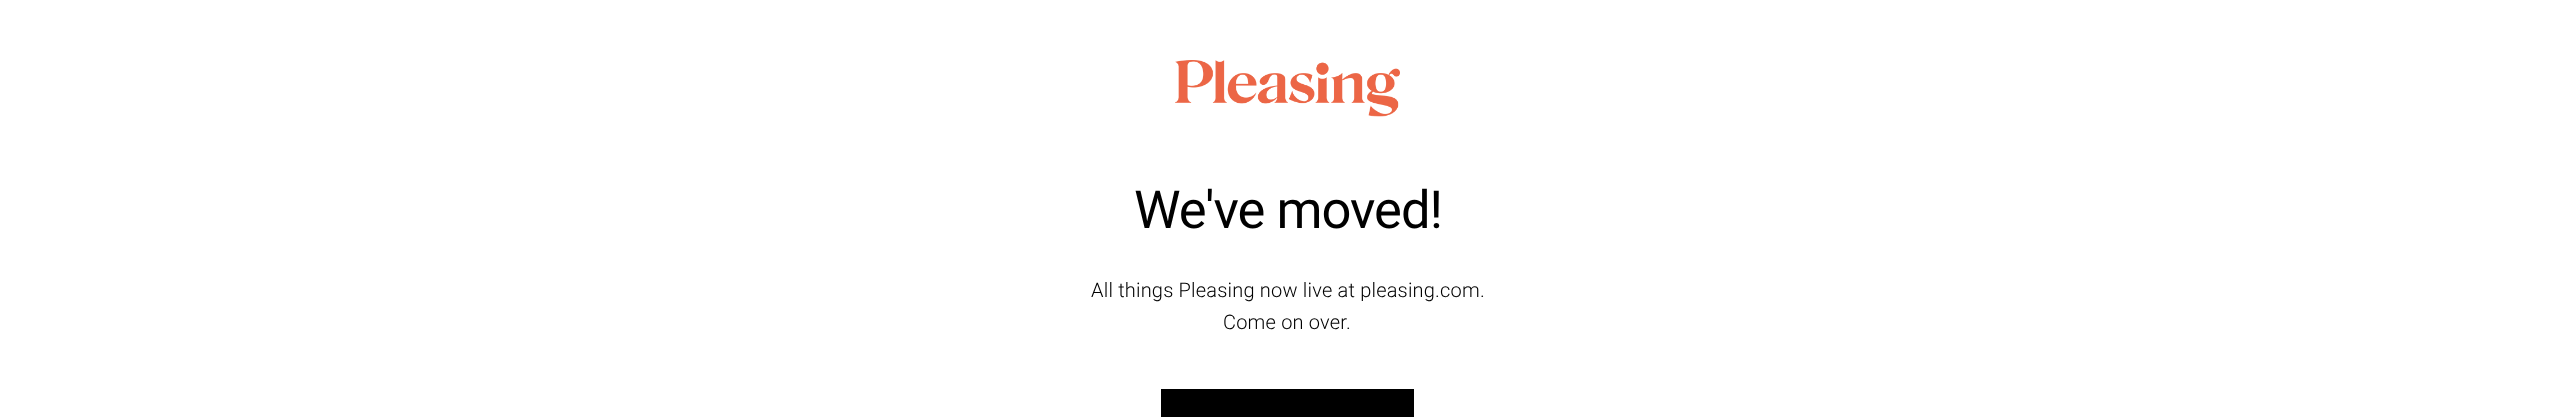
<!DOCTYPE html>
<meta charset="utf-8">
<style>body { margin: 0 } canvas { display: block }</style>
<canvas id="canvas" width="2575" height="417"></canvas>
<script type="module">
  const canvas = document.getElementById("canvas");
  const ctx = canvas.getContext("2d");
  ctx.miterLimit = 4;
  ctx.fontKerning = "normal";
  async function loadImage(src) {
    const img = new Image();
    img.src = src;
    await img.decode();
    return img;
  }

  ctx.fillStyle = "#ffffff";
  ctx.fillRect(0, 0, 2575, 417);
  ctx.drawImage(await loadImage("img1.png"), 1175, 60, 225, 57);
  ctx.letterSpacing = "-1px";
  ctx.font = "52.5px Roboto";
  ctx.fillStyle = "#000000";
  ctx.fillText("We've moved!", 1134, 228);
  ctx.letterSpacing = "0.2px";
  ctx.font = "300 20px Roboto";
  ctx.fillText("All things Pleasing now live at pleasing.com.", 1091, 297);
  ctx.fillText("Come on over.", 1223, 329);
  ctx.fillRect(1161, 389, 253, 28);
</script>
